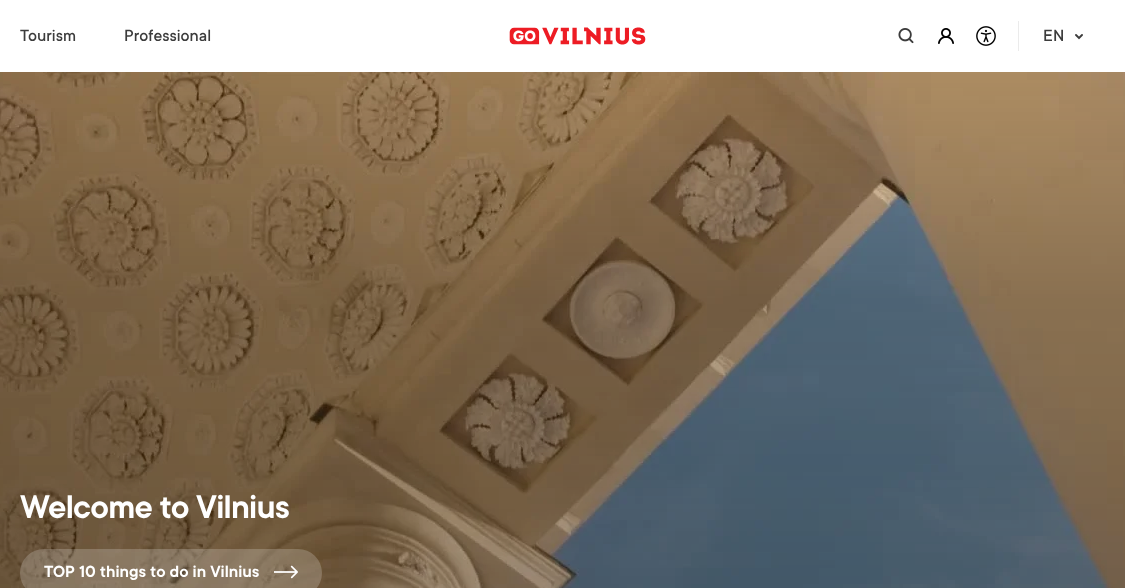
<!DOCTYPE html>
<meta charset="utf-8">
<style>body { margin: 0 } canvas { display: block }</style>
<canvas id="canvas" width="1125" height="588"></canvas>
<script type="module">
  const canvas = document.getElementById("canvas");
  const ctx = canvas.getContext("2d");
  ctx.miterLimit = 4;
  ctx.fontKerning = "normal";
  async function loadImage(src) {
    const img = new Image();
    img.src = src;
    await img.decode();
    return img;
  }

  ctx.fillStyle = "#ffffff";
  ctx.fillRect(0, 0, 1125, 588);
  ctx.font = "500 18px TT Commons";
  ctx.fillStyle = "#3c3c3c";
  ctx.fillText("Tourism", 20, 41);
  ctx.fillText("Professional", 124, 41);
  ctx.drawImage(await loadImage("img1.png"), 509, 27, 137, 18);
  ctx.drawImage(await loadImage("img2.png"), 898, 28, 16, 16);
  ctx.drawImage(await loadImage("img3.png"), 938, 28, 16, 16);
  ctx.drawImage(await loadImage("img4.png"), 976, 26, 20, 20);
  ctx.fillStyle = "#ebebeb";
  ctx.fillRect(1018, 21, 1, 30);
  ctx.fillStyle = "#3c3c3c";
  ctx.fillText("EN", 1043, 41);
  ctx.drawImage(await loadImage("img5.png"), 1075, 34, 8, 6);
  ctx.drawImage(await loadImage("img6.png"), 0, 72, 1125, 516);
  ctx.letterSpacing = "-0.75px";
  ctx.font = "36px TTCommons";
  ctx.fillStyle = "#ffffff";
  ctx.fillText("Welcome to Vilnius", 20, 518);
  ctx.fillStyle = "rgba(255, 255, 255, 0.2)";
  ctx.beginPath();
  ctx.roundRect(20, 549, 302, 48, 24);
  ctx.fill();
  ctx.letterSpacing = "0px";
  ctx.font = "18px TTCommons";
  ctx.fillStyle = "#ffffff";
  ctx.fillText("TOP 10 things to do in Vilnius", 44, 577);
  ctx.drawImage(await loadImage("img7.png"), 274, 565, 24, 14);
</script>
